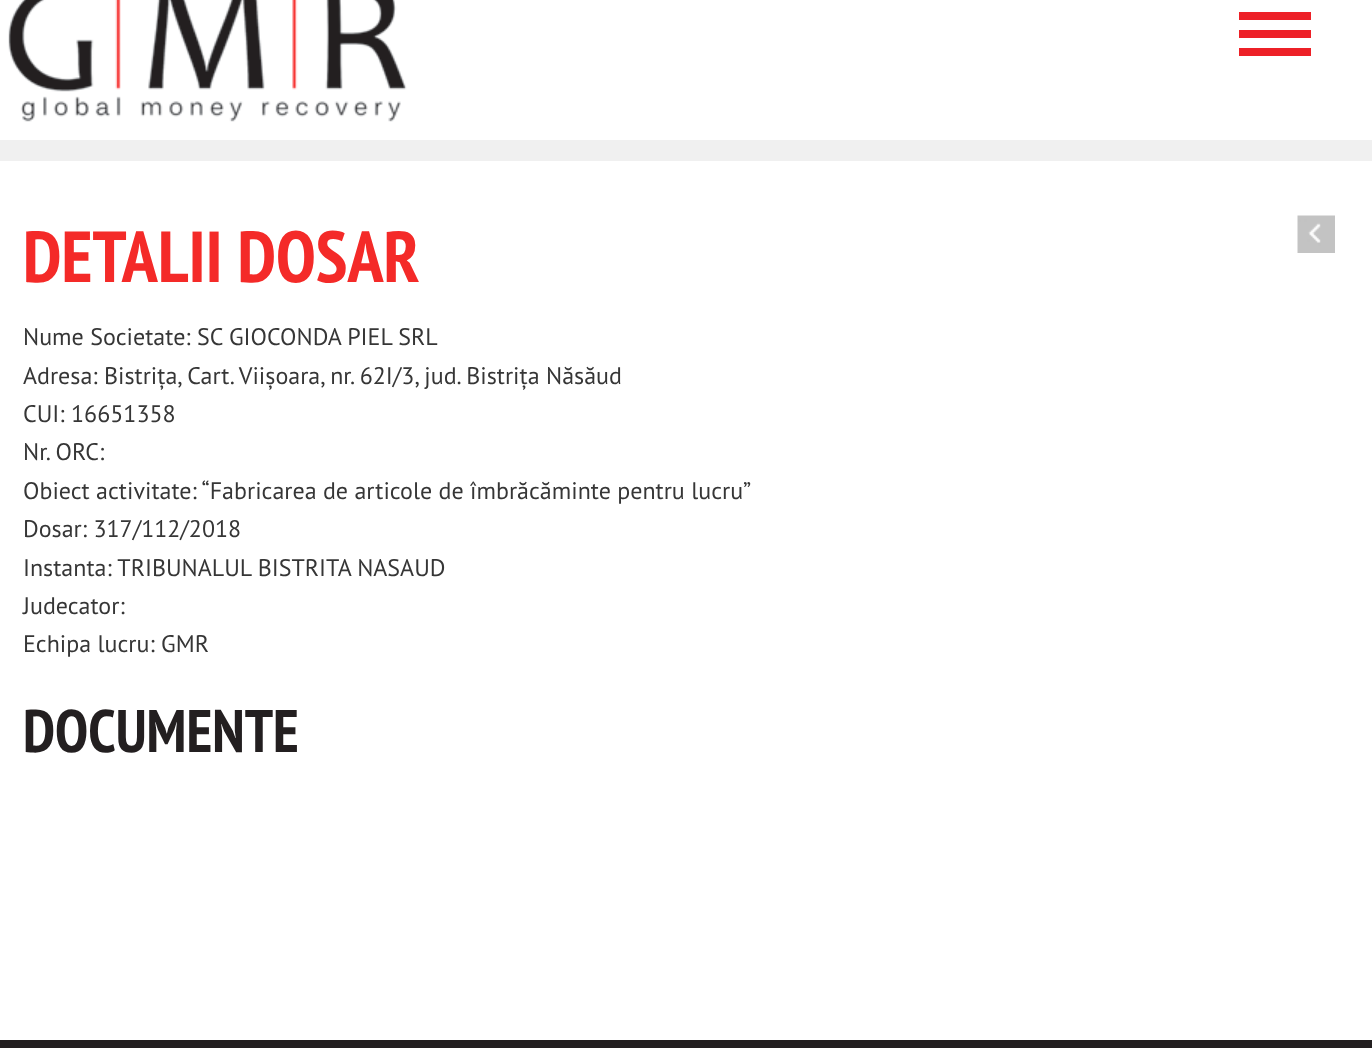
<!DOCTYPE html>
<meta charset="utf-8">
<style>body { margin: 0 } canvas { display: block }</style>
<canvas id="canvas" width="1372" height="1048"></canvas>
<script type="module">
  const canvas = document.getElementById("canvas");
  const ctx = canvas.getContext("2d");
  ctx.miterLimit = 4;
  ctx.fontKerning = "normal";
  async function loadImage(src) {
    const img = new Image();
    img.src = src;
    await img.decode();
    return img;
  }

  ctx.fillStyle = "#ffffff";
  ctx.fillRect(0, 0, 1372, 1048);
  ctx.drawImage(await loadImage("img1.png"), 8, 0, 399, 122);
  ctx.fillStyle = "#ed2027";
  ctx.fillRect(1239, 48, 72, 8);
  ctx.fillRect(1239, 30, 72, 8);
  ctx.fillRect(1239, 12, 72, 8);
  ctx.fillStyle = "#f0f0f0";
  ctx.fillRect(0, 140, 1372, 21);
  ctx.font = "bold 72px PT Sans Narrow";
  ctx.fillStyle = "#f42a28";
  ctx.fillText("DETALII DOSAR", 23, 282);
  ctx.drawImage(await loadImage("img2.png"), 1297, 215, 38, 38);
  ctx.font = "24px PT Sans";
  ctx.fillStyle = "#363636";
  ctx.fillText("Nume Societate: SC GIOCONDA PIEL SRL", 23, 345);
  ctx.fillText("Adresa: Bistrița, Cart. Viișoara, nr. 62I/3, jud. Bistrița Năsăud", 23, 384);
  ctx.fillText("CUI: 16651358", 23, 422);
  ctx.fillText("Nr. ORC:", 23, 460);
  ctx.fillText("Obiect activitate: “Fabricarea de articole de îmbrăcăminte pentru lucru”", 23, 499);
  ctx.fillText("Dosar: 317/112/2018", 23, 537);
  ctx.fillText("Instanta: TRIBUNALUL BISTRITA NASAUD", 23, 576);
  ctx.fillText("Judecator:", 23, 614);
  ctx.fillText("Echipa lucru: GMR", 23, 652);
  ctx.font = "bold 60px PT Sans Narrow";
  ctx.fillStyle = "#231f20";
  ctx.fillText("DOCUMENTE", 23, 752);
  ctx.fillRect(0, 1040, 1372, 8);
</script>
